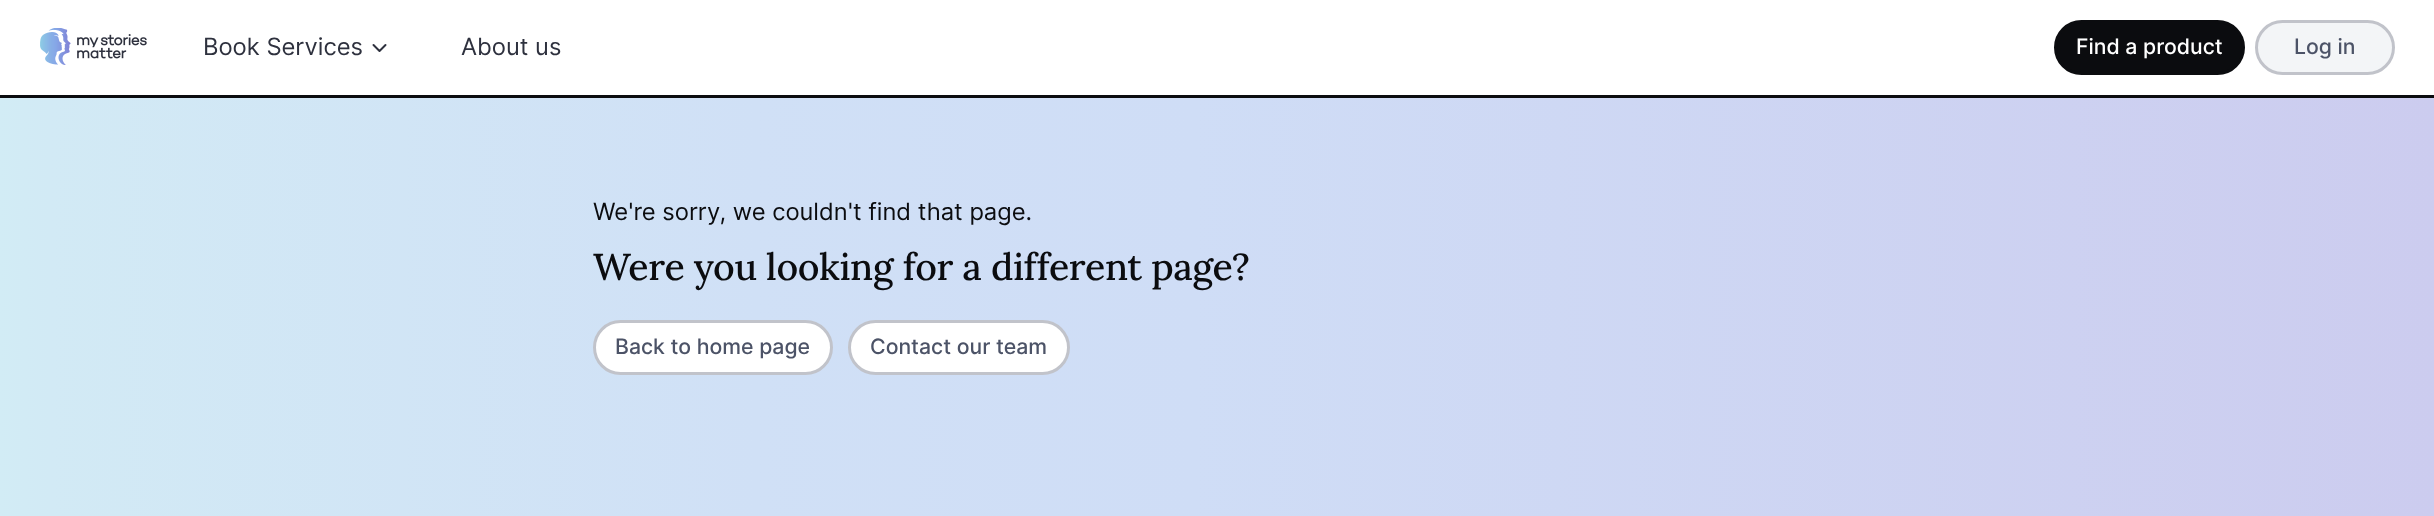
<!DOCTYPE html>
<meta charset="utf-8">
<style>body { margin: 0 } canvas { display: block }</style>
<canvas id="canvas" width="2434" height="516"></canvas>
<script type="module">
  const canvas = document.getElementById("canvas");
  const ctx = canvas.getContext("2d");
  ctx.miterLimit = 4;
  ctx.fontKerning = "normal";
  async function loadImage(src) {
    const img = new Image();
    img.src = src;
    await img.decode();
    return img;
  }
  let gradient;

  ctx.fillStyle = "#ffffff";
  ctx.fillRect(0, 0, 2434, 516);
  ctx.fillStyle = "#0b0c0f";
  ctx.fillRect(0, 95, 2434, 3);
  ctx.drawImage(await loadImage("img1.png"), 40, 28, 107, 37);
  ctx.font = "23.75px Inter";
  ctx.fillStyle = "#2e313e";
  ctx.fillText("Book Services", 203, 55);
  ctx.beginPath();
  ctx.moveTo(373.5, 45);
  ctx.lineTo(379.5, 51);
  ctx.lineTo(385.5, 45);
  ctx.strokeStyle = "#2e313e";
  ctx.lineWidth = 2;
  ctx.lineCap = "round";
  ctx.lineJoin = "round";
  ctx.stroke();
  ctx.fillText("About us", 461, 55);
  ctx.fillStyle = "#0b0c0f";
  ctx.beginPath();
  ctx.roundRect(2055.5, 21.5, 188, 52, 26);
  ctx.fill();
  ctx.strokeStyle = "#0b0c0f";
  ctx.lineWidth = 3;
  ctx.lineJoin = "miter";
  ctx.stroke();
  ctx.font = "500 21.25px Inter";
  ctx.fillStyle = "#ffffff";
  ctx.fillText("Find a product", 2076, 54);
  ctx.fillStyle = "#f3f5f7";
  ctx.beginPath();
  ctx.roundRect(2256.5, 21.5, 137, 52, 26);
  ctx.fill();
  ctx.strokeStyle = "#c1c3ca";
  ctx.stroke();
  ctx.fillStyle = "#4c5367";
  ctx.fillText("Log in", 2294, 54);
  gradient = ctx.createLinearGradient(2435, 367, 0, 368);
  gradient.addColorStop(0, "#ccccef");
  gradient.addColorStop(0.51, "#cfddf6");
  gradient.addColorStop(0.69, "#d0e0f6");
  gradient.addColorStop(0.98, "#d2eaf5");
  gradient.addColorStop(1, "#d2ecf5");
  ctx.fillStyle = gradient;
  ctx.fillRect(0, 98, 2434, 418);
  ctx.font = "23.75px Inter";
  ctx.fillStyle = "#0b0c0f";
  ctx.fillText("We're sorry, we couldn't find that page.", 593, 220);
  ctx.letterSpacing = "-0.4px";
  ctx.font = "500 37.5px Lora";
  ctx.fillText("Were you looking for a different page?", 593, 280);
  ctx.fillStyle = "#ffffff";
  ctx.beginPath();
  ctx.roundRect(594.5, 321.5, 237, 52, 26);
  ctx.fill();
  ctx.stroke();
  ctx.letterSpacing = "0px";
  ctx.font = "500 21.25px Inter";
  ctx.fillStyle = "#4c5367";
  ctx.fillText("Back to home page", 615, 354);
  ctx.fillStyle = "#ffffff";
  ctx.beginPath();
  ctx.roundRect(849.5, 321.5, 219, 52, 26);
  ctx.fill();
  ctx.stroke();
  ctx.fillStyle = "#4c5367";
  ctx.fillText("Contact our team", 870, 354);
</script>
